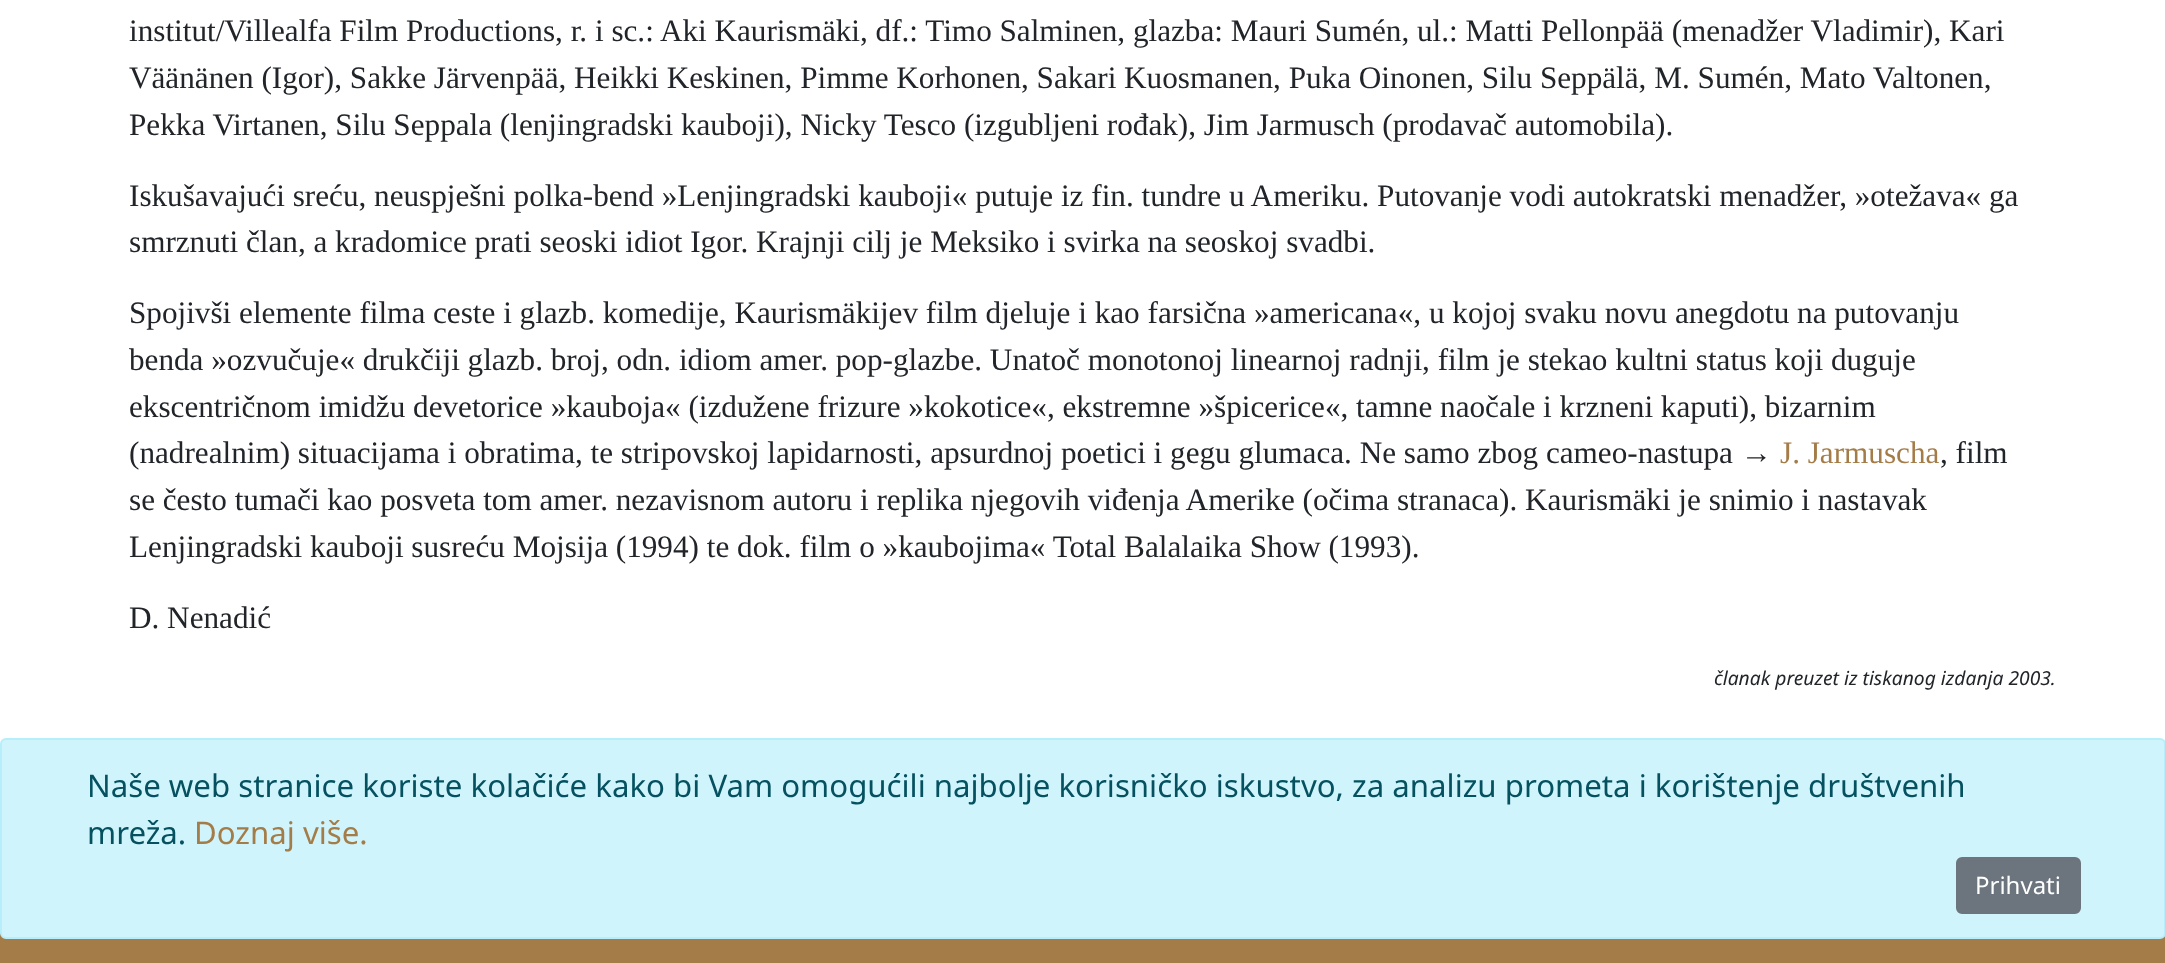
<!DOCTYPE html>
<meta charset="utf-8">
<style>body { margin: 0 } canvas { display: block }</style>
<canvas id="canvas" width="2165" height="963"></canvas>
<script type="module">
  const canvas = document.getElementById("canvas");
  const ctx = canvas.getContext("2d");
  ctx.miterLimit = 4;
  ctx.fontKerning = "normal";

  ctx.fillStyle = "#ffffff";
  ctx.fillRect(0, 0, 2165, 963);
  ctx.font = "31.2px Liberation Serif";
  ctx.fillStyle = "#212529";
  ctx.fillText("institut/Villealfa Film Productions, r. i sc.: Aki Kaurismäki, df.: Timo Salminen, glazba: Mauri Sumén, ul.: Matti Pellonpää (menadžer Vladimir), Kari", 129, 41);
  ctx.fillText("Väänänen (Igor), Sakke Järvenpää, Heikki Keskinen, Pimme Korhonen, Sakari Kuosmanen, Puka Oinonen, Silu Seppälä, M. Sumén, Mato Valtonen,", 129, 88);
  ctx.fillText("Pekka Virtanen, Silu Seppala (lenjingradski kauboji), Nicky Tesco (izgubljeni rođak), Jim Jarmusch (prodavač automobila).", 129, 135);
  ctx.fillText("Iskušavajući sreću, neuspješni polka-bend »Lenjingradski kauboji« putuje iz fin. tundre u Ameriku. Putovanje vodi autokratski menadžer, »otežava« ga", 129, 206);
  ctx.fillText("smrznuti član, a kradomice prati seoski idiot Igor. Krajnji cilj je Meksiko i svirka na seoskoj svadbi.", 129, 252);
  ctx.fillText("Spojivši elemente filma ceste i glazb. komedije, Kaurismäkijev film djeluje i kao farsična »americana«, u kojoj svaku novu anegdotu na putovanju", 129, 323);
  ctx.fillText("benda »ozvučuje« drukčiji glazb. broj, odn. idiom amer. pop-glazbe. Unatoč monotonoj linearnoj radnji, film je stekao kultni status koji duguje", 129, 370);
  ctx.fillText("ekscentričnom imidžu devetorice »kauboja« (izdužene frizure »kokotice«, ekstremne »špicerice«, tamne naočale i krzneni kaputi), bizarnim", 129, 417);
  ctx.fillText("(nadrealnim) situacijama i obratima, te stripovskoj lapidarnosti, apsurdnoj poetici i gegu glumaca. Ne samo zbog cameo-nastupa →", 129, 463);
  ctx.fillStyle = "#a47c48";
  ctx.fillText("J. Jarmuscha", 1780, 463);
  ctx.fillStyle = "#212529";
  ctx.fillText(", film", 1940, 463);
  ctx.fillText("se često tumači kao posveta tom amer. nezavisnom autoru i replika njegovih viđenja Amerike (očima stranaca). Kaurismäki je snimio i nastavak", 129, 510);
  ctx.fillText("Lenjingradski kauboji susreću Mojsija (1994) te dok. film o »kaubojima« Total Balalaika Show (1993).", 129, 557);
  ctx.fillText("D. Nenadić", 129, 628);
  ctx.font = "italic 19.25px Noto Sans";
  ctx.fillText("članak preuzet iz tiskanog izdanja 2003.", 1714, 685);
  ctx.fillStyle = "#a47c48";
  ctx.fillRect(0, 933, 2165, 30);
  ctx.fillStyle = "#cff4fc";
  ctx.beginPath();
  ctx.roundRect(1, 739, 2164, 199, 5);
  ctx.fill();
  ctx.strokeStyle = "#b6effb";
  ctx.lineWidth = 2;
  ctx.stroke();
  ctx.font = "31.2px Noto Sans";
  ctx.fillStyle = "#055160";
  ctx.fillText("Naše web stranice koriste kolačiće kako bi Vam omogućili najbolje korisničko iskustvo, za analizu prometa i korištenje društvenih", 87, 797);
  ctx.fillText("mreža.", 87, 844);
  ctx.fillStyle = "#a47c48";
  ctx.fillText("Doznaj više.", 194, 844);
  ctx.fillStyle = "#6c757d";
  ctx.beginPath();
  ctx.roundRect(1957, 858, 123, 55, 5);
  ctx.fill();
  ctx.strokeStyle = "#6c757d";
  ctx.stroke();
  ctx.font = "24px Noto Sans";
  ctx.fillStyle = "#ffffff";
  ctx.fillText("Prihvati", 1975, 894);
</script>
